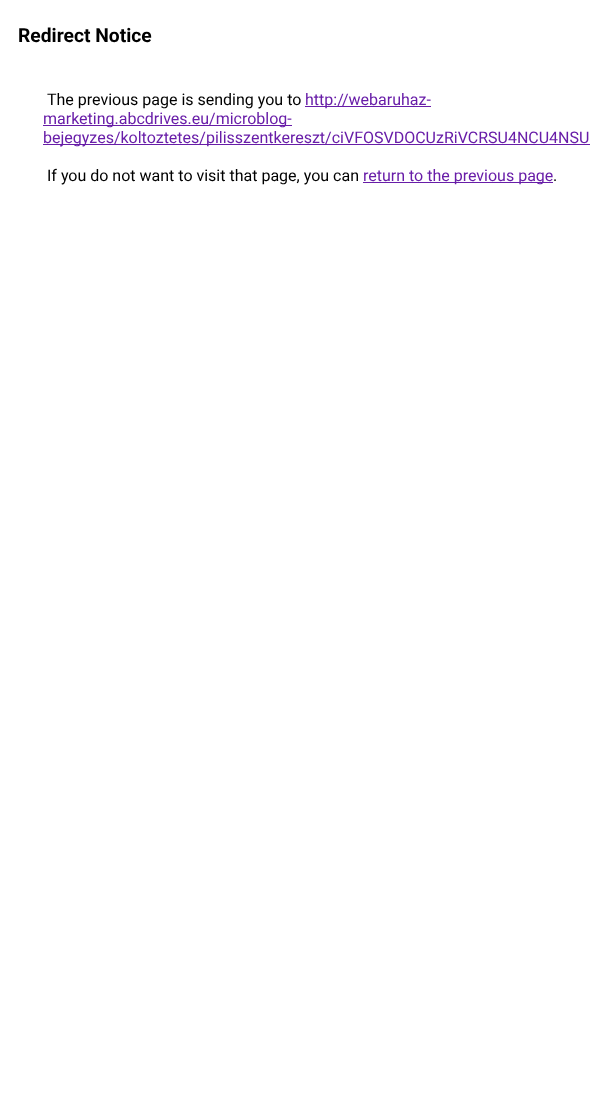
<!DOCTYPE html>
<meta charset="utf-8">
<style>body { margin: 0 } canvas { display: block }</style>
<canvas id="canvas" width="590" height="1112"></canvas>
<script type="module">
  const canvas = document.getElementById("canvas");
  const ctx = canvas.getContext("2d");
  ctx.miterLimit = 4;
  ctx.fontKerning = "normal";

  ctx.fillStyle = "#ffffff";
  ctx.fillRect(0, 0, 590, 1112);
  ctx.font = "bold 19.25px Roboto";
  ctx.fillStyle = "#000000";
  ctx.fillText("Redirect Notice", 18, 42);
  ctx.font = "16px Roboto";
  ctx.fillText("The previous page is sending you to", 47, 105);
  ctx.fillStyle = "#681da8";
  ctx.fillRect(305, 106, 126, 1);
  ctx.fillText("http://webaruhaz-", 305, 105);
  ctx.fillRect(43, 125, 249, 1);
  ctx.fillText("marketing.abcdrives.eu/microblog-", 43, 124);
  ctx.fillRect(43, 144, 547, 1);
  ctx.fillText("bejegyzes/koltoztetes/pilisszentkereszt/ciVFOSVDOCUzRiVCRSU4NCU4NSU", 43, 143);
  ctx.fillStyle = "#000000";
  ctx.fillText("If you do not want to visit that page, you can", 47, 181);
  ctx.fillStyle = "#681da8";
  ctx.fillRect(363, 182, 190, 1);
  ctx.fillText("return to the previous page", 363, 181);
  ctx.fillStyle = "#000000";
  ctx.fillText(".", 553, 181);
</script>
